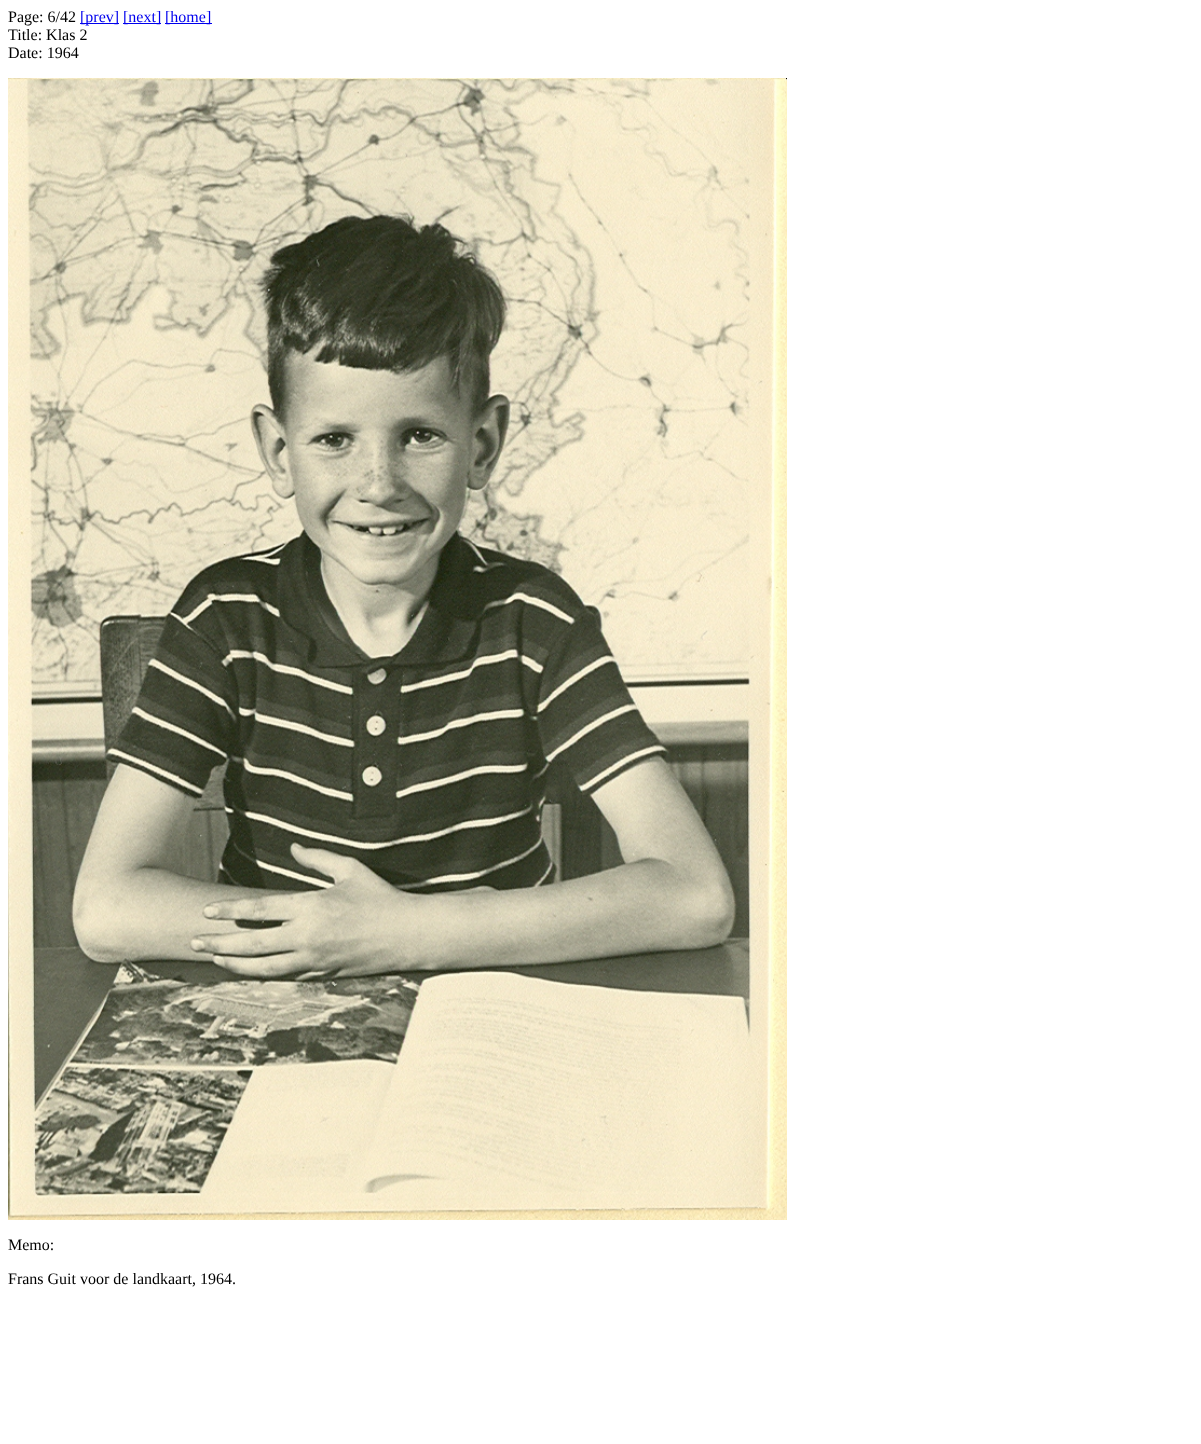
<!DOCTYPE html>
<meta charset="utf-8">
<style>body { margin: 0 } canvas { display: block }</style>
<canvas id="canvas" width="1201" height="1444"></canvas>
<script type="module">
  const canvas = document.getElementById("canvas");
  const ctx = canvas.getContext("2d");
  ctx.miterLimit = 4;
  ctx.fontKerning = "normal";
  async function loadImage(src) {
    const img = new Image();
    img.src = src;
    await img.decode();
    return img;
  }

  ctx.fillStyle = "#ffffff";
  ctx.fillRect(0, 0, 1201, 1444);
  ctx.font = "16px Liberation Serif";
  ctx.fillStyle = "#000000";
  ctx.fillText("Page: 6/42", 8, 22);
  ctx.fillStyle = "#0000ee";
  ctx.fillRect(80, 23, 39, 1);
  ctx.fillText("[prev]", 80, 22);
  ctx.fillRect(123, 23, 38, 1);
  ctx.fillText("[next]", 123, 22);
  ctx.fillRect(165, 23, 47, 1);
  ctx.fillText("[home]", 165, 22);
  ctx.fillStyle = "#000000";
  ctx.fillText("Title: Klas 2", 8, 40);
  ctx.fillText("Date: 1964", 8, 58);
  ctx.drawImage(await loadImage("img1.png"), 8, 78, 779, 1142);
  ctx.fillText("Memo:", 8, 1250);
  ctx.fillText("Frans Guit voor de landkaart, 1964.", 8, 1284);
</script>
